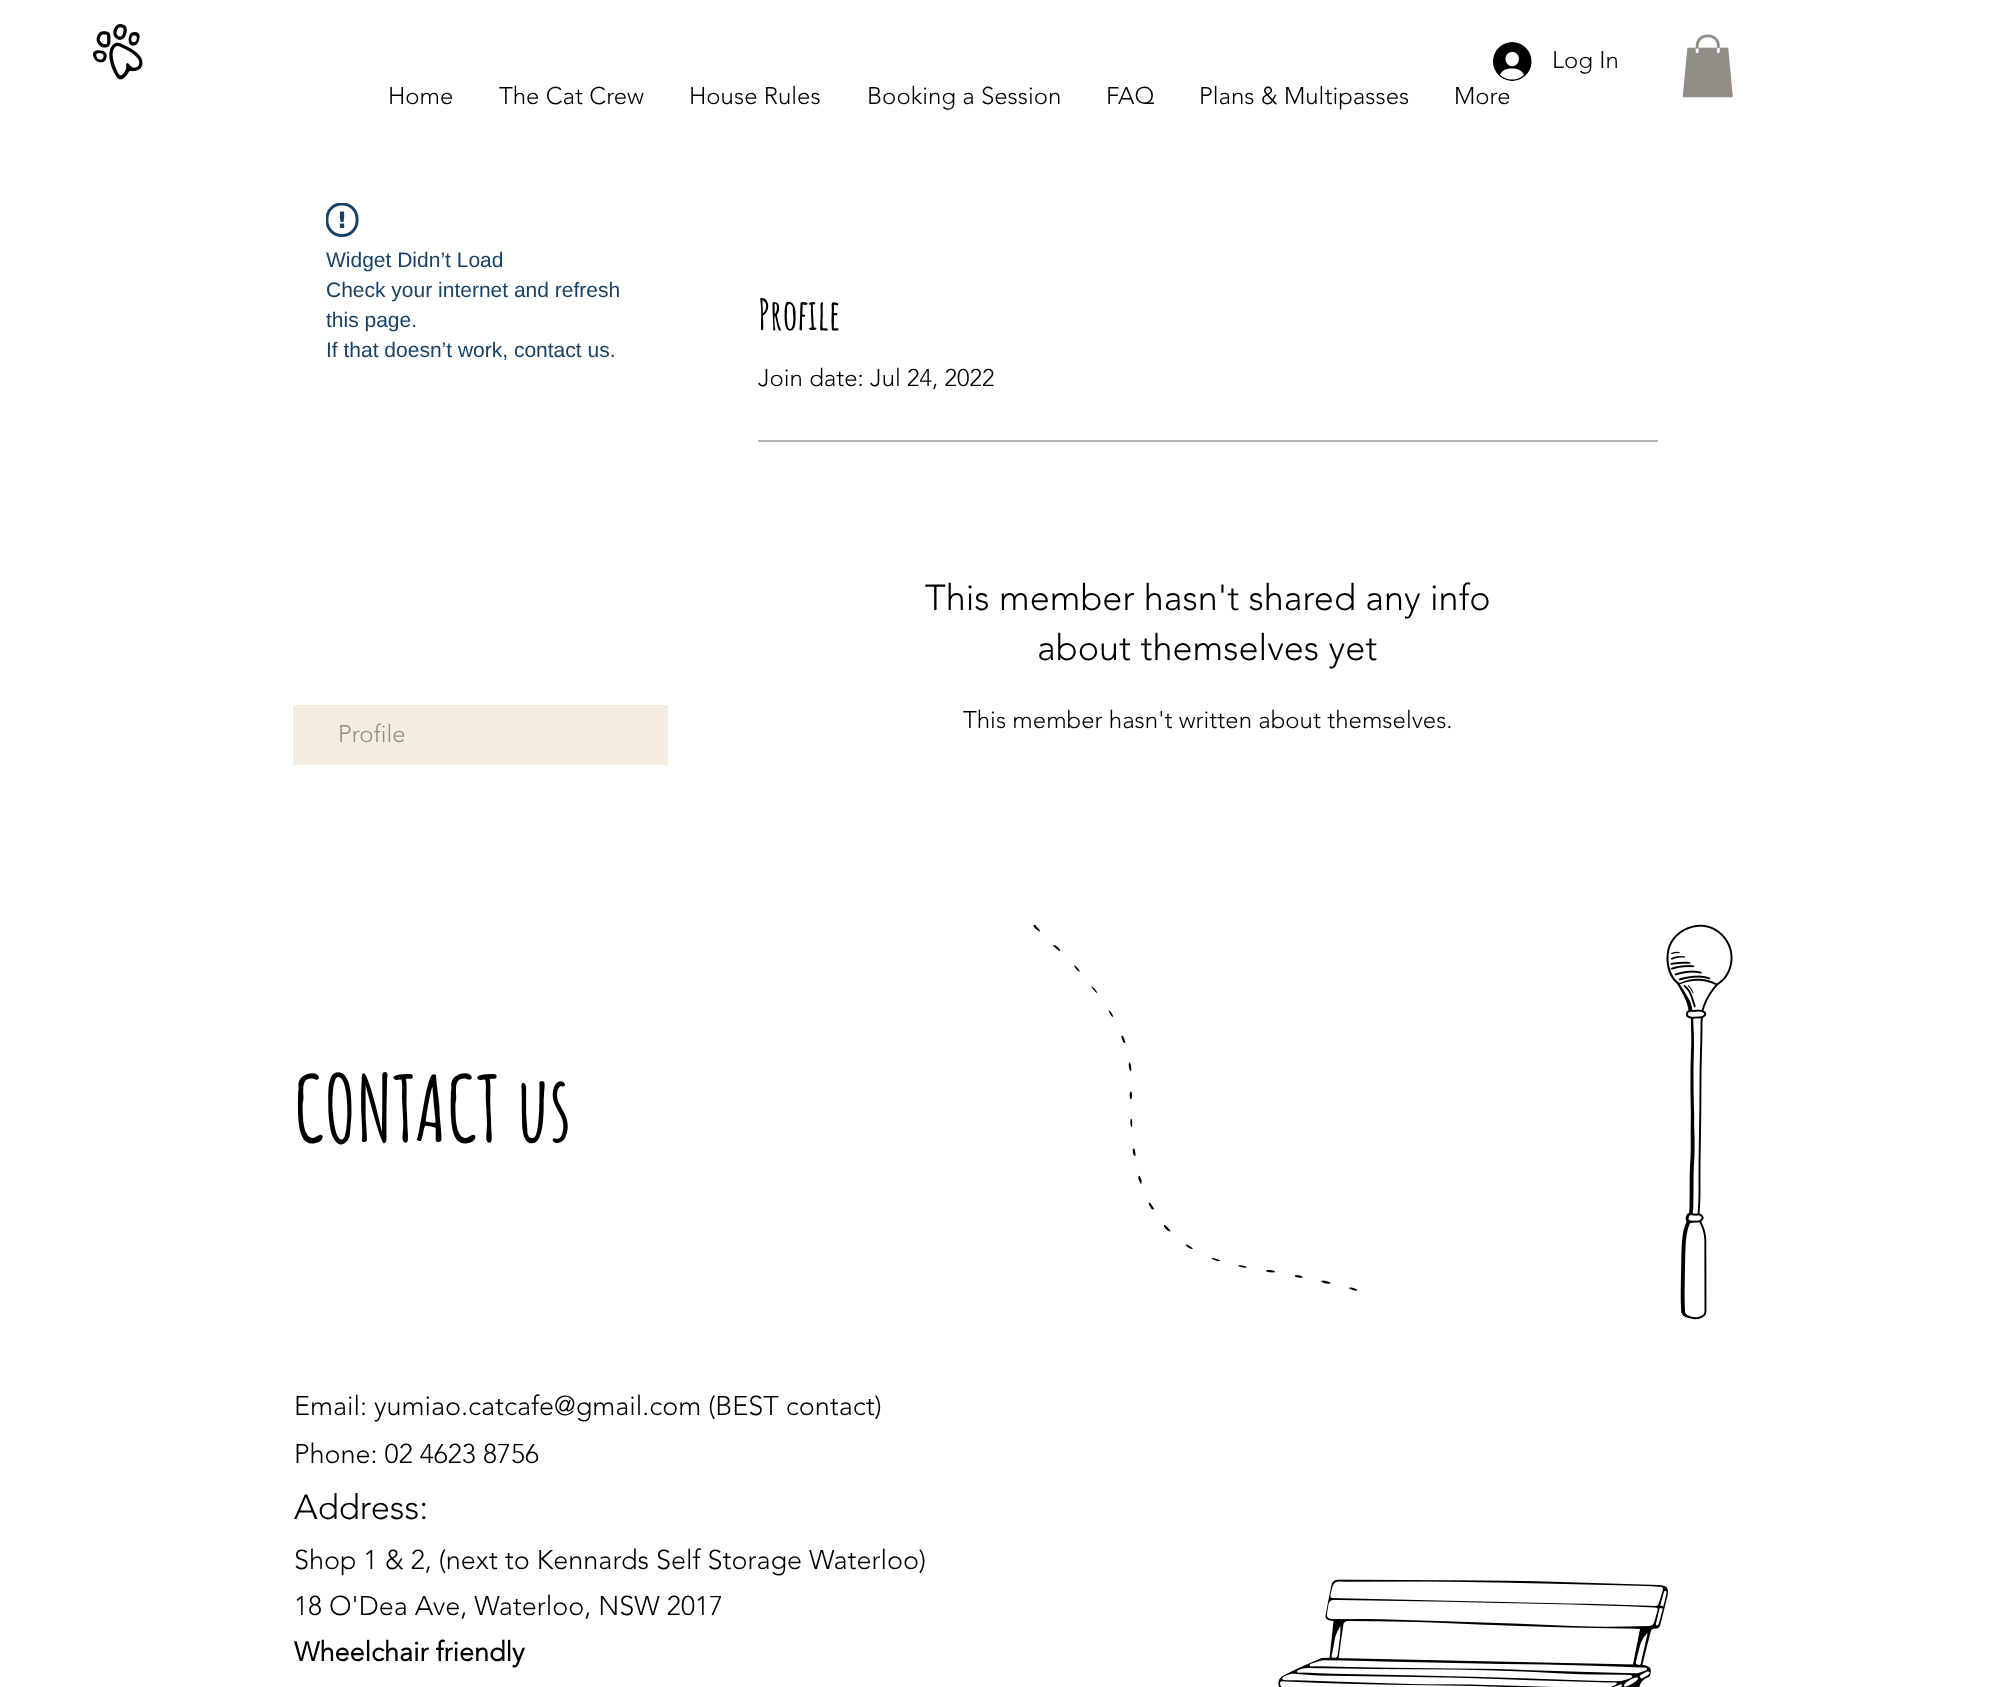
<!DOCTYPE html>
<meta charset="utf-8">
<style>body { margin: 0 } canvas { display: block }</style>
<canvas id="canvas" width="1995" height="1687"></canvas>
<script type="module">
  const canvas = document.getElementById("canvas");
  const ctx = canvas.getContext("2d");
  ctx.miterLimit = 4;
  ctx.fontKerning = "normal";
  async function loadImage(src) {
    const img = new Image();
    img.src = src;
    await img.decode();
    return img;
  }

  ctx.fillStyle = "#ffffff";
  ctx.fillRect(0, 0, 1995, 1687);
  ctx.drawImage(await loadImage("img1.png"), 93, 24, 50, 56);
  ctx.drawImage(await loadImage("img2.png"), 1493, 42, 39, 39);
  ctx.font = "300 24px 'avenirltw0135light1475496'";
  ctx.fillStyle = "#000000";
  ctx.fillText("Log In", 1552, 68);
  ctx.fillText("Home", 388, 104);
  ctx.fillText("The Cat Crew", 499, 104);
  ctx.fillText("House Rules", 689, 104);
  ctx.fillText("Booking a Session", 867, 104);
  ctx.fillText("FAQ", 1106, 104);
  ctx.fillText("Plans & Multipasses", 1199, 104);
  ctx.fillText("More", 1454, 104);
  ctx.drawImage(await loadImage("img3.png"), 1682, 34, 51, 64);
  ctx.drawImage(await loadImage("img4.png"), 326, 203, 33, 34);
  ctx.font = "21px Liberation Sans";
  ctx.fillStyle = "#174165";
  ctx.fillText("Widget Didn’t Load", 326, 267);
  ctx.fillText("Check your internet and refresh", 326, 297);
  ctx.fillText("this page.", 326, 327);
  ctx.fillText("If that doesn’t work, contact us.", 326, 357);
  ctx.fillStyle = "#f4ece1";
  ctx.fillRect(293, 705, 375, 60);
  ctx.font = "300 24px 'avenirltw0135light1475496'";
  ctx.fillStyle = "#928e87";
  ctx.fillText("Profile", 338, 742);
  ctx.font = "bold 42px Amatic SC";
  ctx.fillStyle = "#000000";
  ctx.fillText("Profile", 758, 330);
  ctx.font = "300 24px 'avenirltw0135light1475496'";
  ctx.fillText("Join date: Jul 24, 2022", 758, 386);
  ctx.fillStyle = "#b3b3b3";
  ctx.fillRect(758, 440, 900, 2);
  ctx.font = "300 36px 'avenirltw0135light1475496'";
  ctx.fillStyle = "#000000";
  ctx.fillText("This member hasn't shared any info", 925, 610);
  ctx.fillText("about themselves yet", 1037, 660);
  ctx.font = "300 24px 'avenirltw0135light1475496'";
  ctx.fillText("This member hasn't written about themselves.", 963, 728);
  ctx.font = "bold 90px Amatic SC";
  ctx.fillText("CONTACT us", 294, 1142);
  ctx.drawImage(await loadImage("img5.png"), 1033, 924, 325, 367);
  ctx.drawImage(await loadImage("img6.png"), 1666, 924, 67, 396);
  ctx.font = "300 27px 'avenirltw0135light1475496'";
  ctx.fillText("Email: yumiao.catcafe@gmail.com (BEST contact)", 294, 1415);
  ctx.fillText("Phone: 02 4623 8756", 294, 1463);
  ctx.font = "300 34.5px 'avenirltw0135light1475496'";
  ctx.fillText("Address:", 294, 1519);
  ctx.font = "300 27px 'avenirltw0135light1475496'";
  ctx.fillText("Shop 1 & 2, (next to Kennards Self Storage Waterloo)", 294, 1569);
  ctx.fillText("18 O'Dea Ave, Waterloo, NSW 2017", 294, 1615);
  ctx.font = "bold 27px 'avenirltw0135light1475496'";
  ctx.fillText("Wheelchair friendly", 294, 1661);
  ctx.drawImage(await loadImage("img7.png"), 1278, 1579, 390, 108);
</script>
